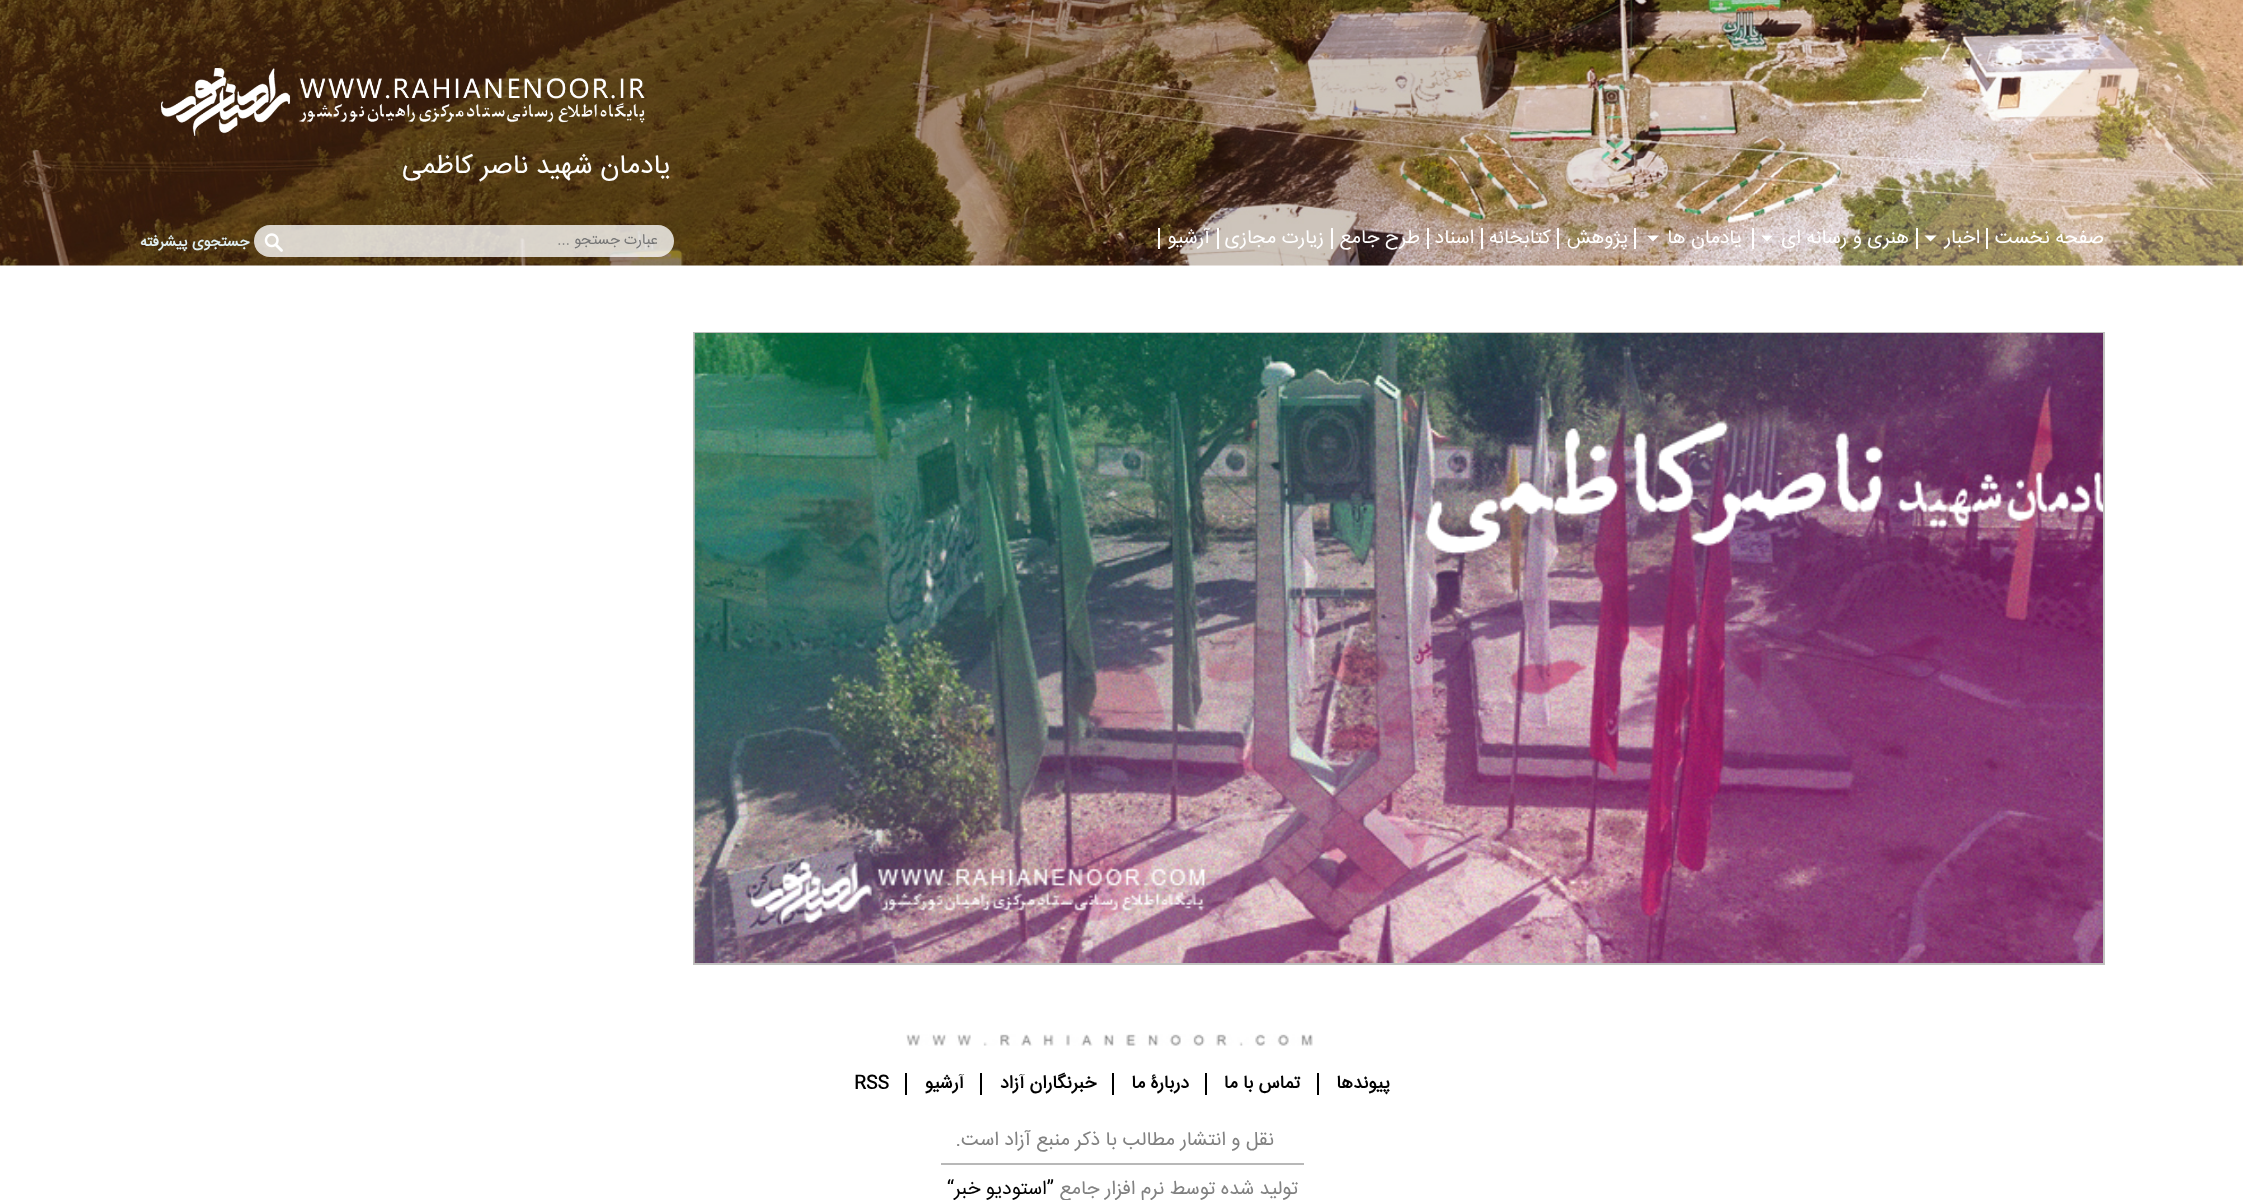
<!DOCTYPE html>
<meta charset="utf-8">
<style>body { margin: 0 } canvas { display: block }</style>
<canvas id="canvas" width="2243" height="1200"></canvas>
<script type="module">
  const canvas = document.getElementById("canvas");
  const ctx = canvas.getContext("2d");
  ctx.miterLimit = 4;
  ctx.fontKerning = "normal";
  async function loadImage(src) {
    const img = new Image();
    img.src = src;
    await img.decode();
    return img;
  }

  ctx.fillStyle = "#ffffff";
  ctx.fillRect(0, 0, 2243, 1200);
  ctx.drawImage(await loadImage("img1.png"), 0, 0, 2243, 266);
  ctx.drawImage(await loadImage("img2.png"), 161, 68, 484, 68);
  ctx.direction = "rtl";
  ctx.font = "27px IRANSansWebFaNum";
  ctx.fillText("یادمان شهید ناصر کاظمی", 671, 173);
  ctx.font = "19.5px IRANSansWebFaNum";
  ctx.fillText("صفحه نخست", 2104, 243);
  ctx.fillRect(1986, 228, 2, 21);
  ctx.fillText("اخبار", 1980, 243);
  ctx.beginPath();
  ctx.moveTo(1924.5, 235.5);
  ctx.lineTo(1936.5, 235.5);
  ctx.lineTo(1930.5, 241.5);
  ctx.closePath();
  ctx.fill();
  ctx.fillRect(1916, 228, 2, 21);
  ctx.fillText("هنری و رسانه ای", 1909, 243);
  ctx.beginPath();
  ctx.moveTo(1761, 235.5);
  ctx.lineTo(1773, 235.5);
  ctx.lineTo(1767, 241.5);
  ctx.closePath();
  ctx.fill();
  ctx.fillRect(1752, 228, 2, 21);
  ctx.fillText("یادمان ها", 1742, 243);
  ctx.beginPath();
  ctx.moveTo(1647, 235.5);
  ctx.lineTo(1659, 235.5);
  ctx.lineTo(1653, 241.5);
  ctx.closePath();
  ctx.fill();
  ctx.fillRect(1634, 228, 2, 21);
  ctx.fillText("پژوهش", 1628, 243);
  ctx.fillRect(1557, 228, 2, 21);
  ctx.fillText("کتابخانه", 1551, 243);
  ctx.fillRect(1481, 228, 2, 21);
  ctx.fillText("اسناد", 1474, 243);
  ctx.fillRect(1427, 228, 2, 21);
  ctx.fillText("طرح جامع", 1420, 243);
  ctx.fillRect(1331, 228, 2, 21);
  ctx.fillText("زیارت‌ مجازی", 1324, 243);
  ctx.fillRect(1217, 228, 2, 21);
  ctx.fillText("آرشیو", 1210, 243);
  ctx.fillRect(1158, 228, 2, 21);
  ctx.fillStyle = "rgba(255, 255, 255, 0.78)";
  ctx.beginPath();
  ctx.roundRect(254, 225, 420, 32, 16);
  ctx.fill();
  ctx.font = "15px IRANSansWebFaNum";
  ctx.fillStyle = "#757575";
  ctx.fillText("عبارت جستجو ...", 658, 244);
  ctx.drawImage(await loadImage("img3.png"), 264, 233, 19, 19);
  ctx.font = "bold 15px IRANSansWebFaNum";
  ctx.fillStyle = "#dfeef1";
  ctx.fillText("جستجوی پيشرفته", 249, 246);
  ctx.strokeStyle = "#c0c0be";
  ctx.lineWidth = 2;
  ctx.strokeRect(694, 333, 1410, 631);
  ctx.drawImage(await loadImage("img4.png"), 694, 333, 1409, 630);
  ctx.drawImage(await loadImage("img5.png"), 906, 1034, 407, 12);
  ctx.font = "bold 18px IRANSansWebFaNum";
  ctx.fillStyle = "#000000";
  ctx.fillText("پیوندها", 1390, 1088);
  ctx.fillRect(1317, 1073, 2, 22);
  ctx.fillText("تماس با ما", 1300, 1088);
  ctx.fillRect(1205, 1073, 2, 22);
  ctx.fillText("دربارۀ ما", 1189, 1088);
  ctx.fillRect(1112, 1073, 2, 22);
  ctx.fillText("خبرنگاران آزاد", 1096, 1088);
  ctx.fillRect(980, 1073, 2, 22);
  ctx.fillText("آرشیو", 964, 1088);
  ctx.fillRect(905, 1073, 2, 22);
  ctx.direction = "ltr";
  ctx.fillText("RSS", 854, 1088);
  ctx.fillStyle = "#b8b8b8";
  ctx.fillRect(941, 1163, 363, 2);
  ctx.direction = "rtl";
  ctx.font = "19.5px IRANSansWebFaNum";
  ctx.fillStyle = "#818181";
  ctx.fillText("نقل و انتشار مطالب با ذکر منبع آزاد است.", 1274, 1145);
  ctx.fillText("توليد شده توسط نرم افزار جامع", 1298, 1194);
  ctx.fillStyle = "#000000";
  ctx.fillText("”استوديو خبر“", 1054, 1194);
</script>
